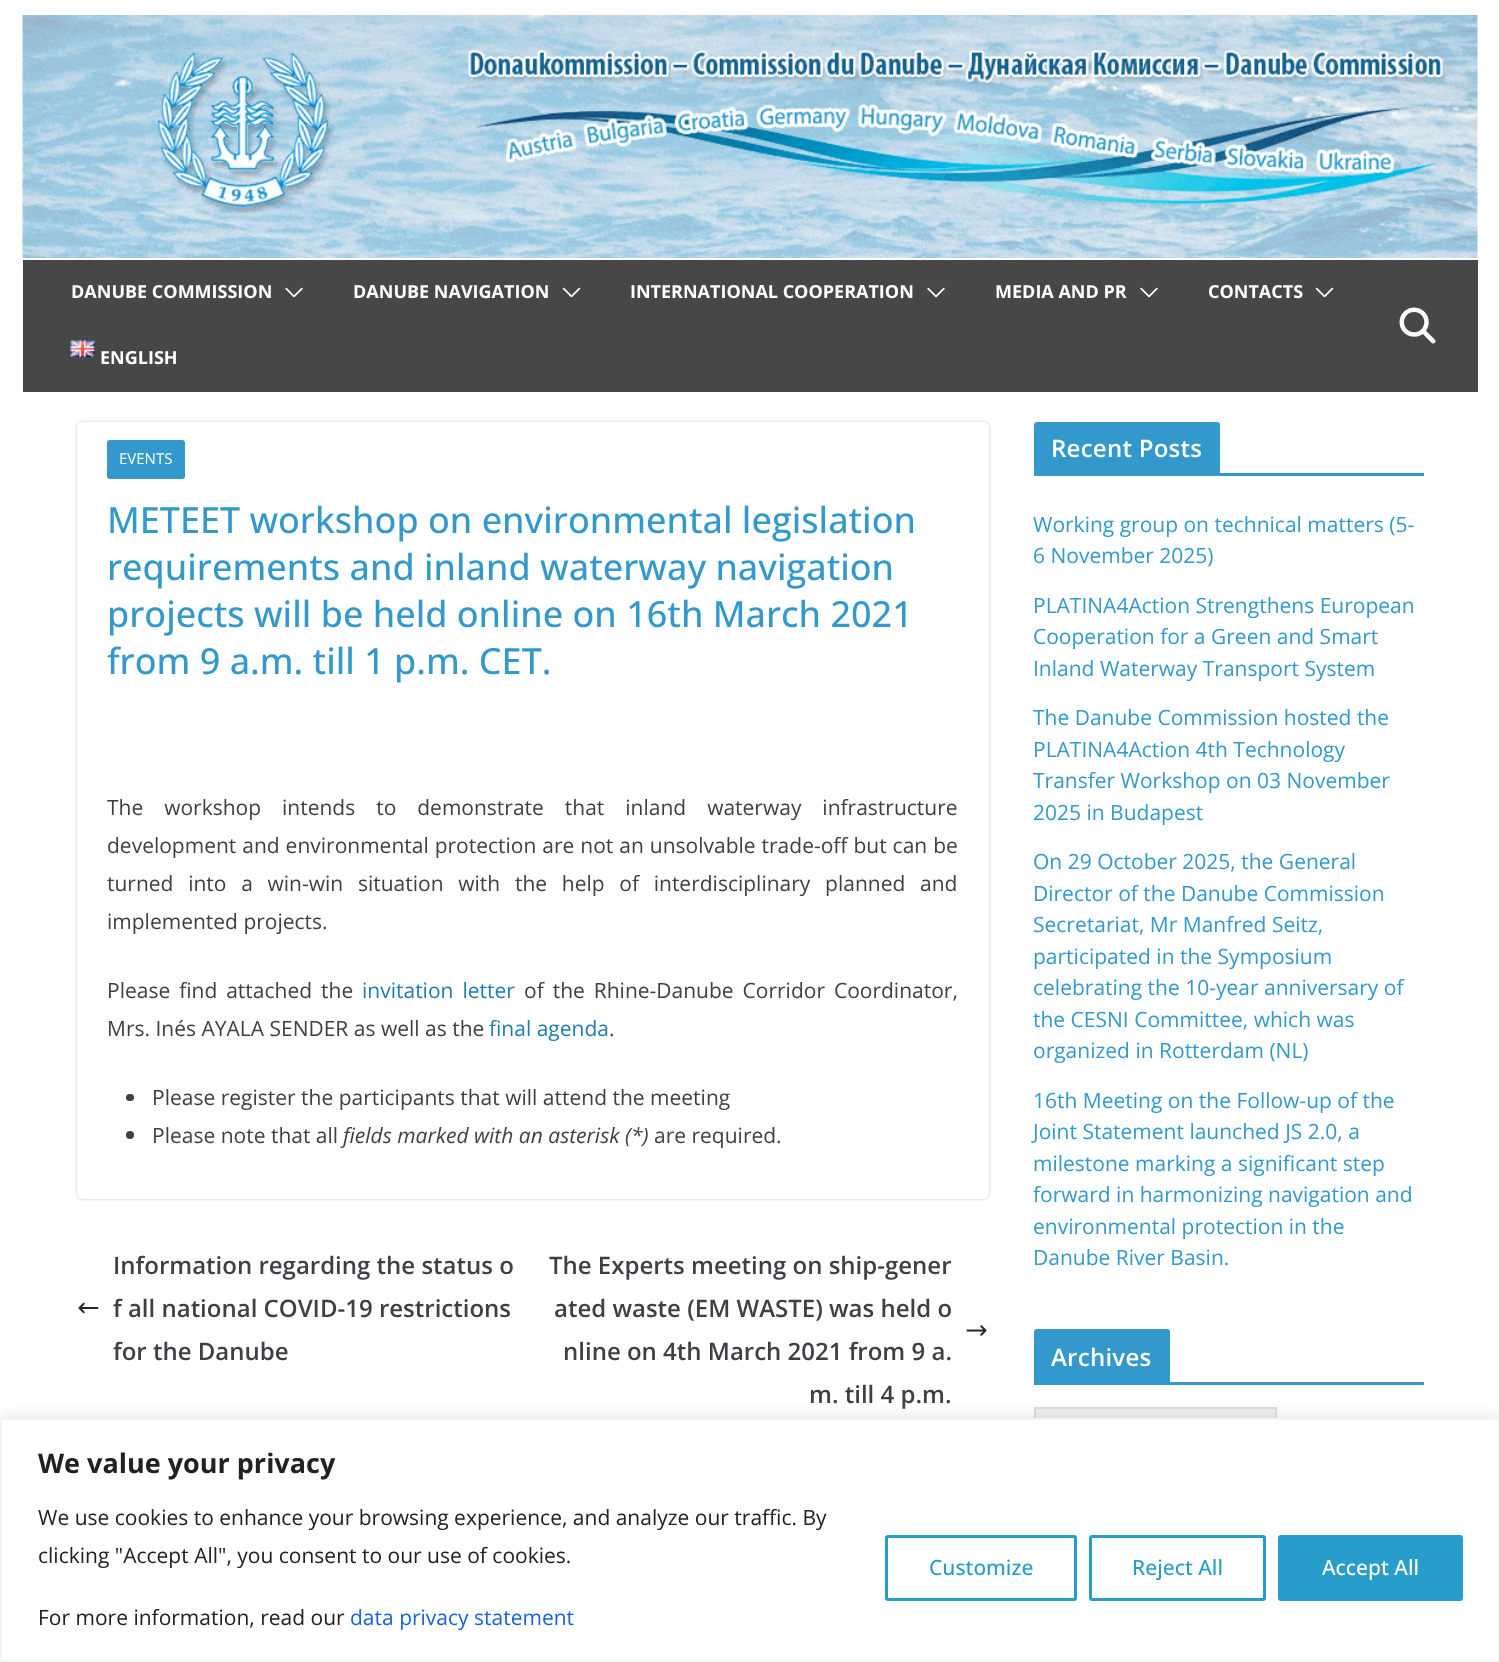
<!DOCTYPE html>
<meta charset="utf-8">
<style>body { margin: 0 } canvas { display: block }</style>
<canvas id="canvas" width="1499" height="1662"></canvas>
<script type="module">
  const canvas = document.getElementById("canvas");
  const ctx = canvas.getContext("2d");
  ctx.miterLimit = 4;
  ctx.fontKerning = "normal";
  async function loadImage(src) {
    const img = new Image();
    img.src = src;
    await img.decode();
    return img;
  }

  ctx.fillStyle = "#ffffff";
  ctx.fillRect(0, 0, 1499, 1662);
  ctx.drawImage(await loadImage("img1.png"), 22, 15, 1456, 243);
  ctx.fillStyle = "#474747";
  ctx.fillRect(23, 260, 1455, 132);
  ctx.font = "bold 18px Open Sans";
  ctx.fillStyle = "#ffffff";
  ctx.fillText("DANUBE COMMISSION", 71, 298);
  ctx.drawImage(await loadImage("img2.png"), 285, 287, 18, 11);
  ctx.fillText("DANUBE NAVIGATION", 353, 298);
  ctx.drawImage(await loadImage("img3.png"), 562, 287, 19, 11);
  ctx.fillText("INTERNATIONAL COOPERATION", 630, 298);
  ctx.drawImage(await loadImage("img2.png"), 927, 287, 18, 11);
  ctx.fillText("MEDIA AND PR", 995, 298);
  ctx.drawImage(await loadImage("img2.png"), 1140, 287, 18, 11);
  ctx.fillText("CONTACTS", 1208, 298);
  ctx.drawImage(await loadImage("img3.png"), 1315, 287, 19, 11);
  ctx.drawImage(await loadImage("img4.png"), 70, 340, 25, 17);
  ctx.fillText("ENGLISH", 100, 364);
  ctx.drawImage(await loadImage("img5.png"), 1399, 307, 37, 37);
  ctx.save();
  ctx.beginPath();
  ctx.moveTo(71, 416);
  ctx.lineTo(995, 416);
  ctx.lineTo(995, 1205);
  ctx.lineTo(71, 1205);
  ctx.closePath();
  ctx.moveTo(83, 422);
  ctx.lineTo(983, 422);
  ctx.bezierCurveTo(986.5, 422, 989, 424.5, 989, 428);
  ctx.lineTo(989, 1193);
  ctx.bezierCurveTo(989, 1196.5, 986.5, 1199, 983, 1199);
  ctx.lineTo(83, 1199);
  ctx.bezierCurveTo(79.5, 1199, 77, 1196.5, 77, 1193);
  ctx.lineTo(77, 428);
  ctx.bezierCurveTo(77, 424.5, 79.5, 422, 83, 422);
  ctx.closePath();
  ctx.clip("evenodd");
  ctx.fillStyle = "rgba(0, 0, 0, 0.24)";
  ctx.filter = "blur(1.5px)";
  ctx.beginPath();
  ctx.roundRect(77, 422, 912, 777, 6);
  ctx.fill();
  ctx.filter = "none";
  ctx.restore();
  ctx.fillStyle = "#3399cc";
  ctx.beginPath();
  ctx.roundRect(107, 440, 78, 39, 3);
  ctx.fill();
  ctx.font = "15px Open Sans";
  ctx.fillStyle = "#ffffff";
  ctx.fillText("EVENTS", 119, 464);
  ctx.font = "500 36px Open Sans";
  ctx.fillStyle = "#3399cc";
  ctx.fillText("METEET workshop on environmental legislation", 107, 533);
  ctx.fillText("requirements and inland waterway navigation", 107, 580);
  ctx.fillText("projects will be held online on 16th March 2021", 107, 627);
  ctx.fillText("from 9 a.m. till 1 p.m. CET.", 107, 674);
  ctx.wordSpacing = "15.5px";
  ctx.font = "21px Open Sans";
  ctx.fillStyle = "#3f3f46";
  ctx.fillText("The workshop intends to demonstrate that inland waterway infrastructure", 107, 815);
  ctx.wordSpacing = "0.5px";
  ctx.fillText("development and environmental protection are not an unsolvable trade-off but can be", 107, 853);
  ctx.wordSpacing = "9.25px";
  ctx.fillText("turned into a win-win situation with the help of interdisciplinary planned and", 107, 891);
  ctx.wordSpacing = "0px";
  ctx.fillText("implemented projects.", 107, 929);
  ctx.wordSpacing = "3.5px";
  ctx.fillText("Please find attached the", 107, 998);
  ctx.fillStyle = "#207daf";
  ctx.fillText("invitation letter", 362, 998);
  ctx.fillStyle = "#3f3f46";
  ctx.fillText("of the Rhine-Danube Corridor Coordinator,", 524, 998);
  ctx.wordSpacing = "0px";
  ctx.fillText("Mrs. Inés AYALA SENDER as well as the", 107, 1036);
  ctx.fillStyle = "#207daf";
  ctx.fillText("final agenda", 489, 1036);
  ctx.fillStyle = "#3f3f46";
  ctx.fillText(".", 609, 1036);
  ctx.beginPath();
  ctx.roundRect(126, 1094, 8, 7, 3.5);
  ctx.fill();
  ctx.fillText("Please register the participants that will attend the meeting", 152, 1105);
  ctx.beginPath();
  ctx.arc(130, 1135, 4, 0, Math.PI * 2);
  ctx.fill();
  ctx.fillText("Please note that all", 152, 1143);
  ctx.font = "italic 21px Open Sans";
  ctx.fillText("fields marked with an asterisk (*)", 343, 1143);
  ctx.font = "21px Open Sans";
  ctx.fillText("are required.", 654, 1143);
  ctx.font = "600 24px Open Sans";
  ctx.fillText("Information regarding the status o", 113, 1274);
  ctx.drawImage(await loadImage("img6.png"), 78, 1302, 21, 12);
  ctx.fillText("f all national COVID-19 restrictions", 113, 1317);
  ctx.fillText("for the Danube", 113, 1360);
  ctx.fillText("The Experts meeting on ship-gener", 549, 1274);
  ctx.fillText("ated waste (EM WASTE) was held o", 554, 1317);
  ctx.drawImage(await loadImage("img7.png"), 966, 1325, 21, 11);
  ctx.fillText("nline on 4th March 2021 from 9 a.", 563, 1360);
  ctx.fillText("m. till 4 p.m.", 809, 1403);
  ctx.fillStyle = "#3399cc";
  ctx.fillRect(1034, 473, 390, 3);
  ctx.beginPath();
  ctx.roundRect(1034, 422, 186, 51, [3, 3, 0, 0]);
  ctx.fill();
  ctx.letterSpacing = "0.25px";
  ctx.fillStyle = "#ffffff";
  ctx.fillText("Recent Posts", 1051, 457);
  ctx.letterSpacing = "0px";
  ctx.font = "21px Open Sans";
  ctx.fillStyle = "#3399cc";
  ctx.fillText("Working group on technical matters (5-", 1033, 532);
  ctx.fillText("6 November 2025)", 1033, 563);
  ctx.fillText("PLATINA4Action Strengthens European", 1033, 613);
  ctx.fillText("Cooperation for a Green and Smart", 1033, 644);
  ctx.fillText("Inland Waterway Transport System", 1033, 676);
  ctx.fillText("The Danube Commission hosted the", 1033, 725);
  ctx.fillText("PLATINA4Action 4th Technology", 1033, 757);
  ctx.fillText("Transfer Workshop on 03 November", 1033, 788);
  ctx.fillText("2025 in Budapest", 1033, 820);
  ctx.fillText("On 29 October 2025, the General", 1033, 869);
  ctx.fillText("Director of the Danube Commission", 1033, 901);
  ctx.fillText("Secretariat, Mr Manfred Seitz,", 1033, 932);
  ctx.fillText("participated in the Symposium", 1033, 964);
  ctx.fillText("celebrating the 10-year anniversary of", 1033, 995);
  ctx.fillText("the CESNI Committee, which was", 1033, 1027);
  ctx.fillText("organized in Rotterdam (NL)", 1033, 1058);
  ctx.fillText("16th Meeting on the Follow-up of the", 1033, 1108);
  ctx.fillText("Joint Statement launched JS 2.0, a", 1033, 1139);
  ctx.fillText("milestone marking a significant step", 1033, 1171);
  ctx.fillText("forward in harmonizing navigation and", 1033, 1202);
  ctx.fillText("environmental protection in the", 1033, 1234);
  ctx.fillText("Danube River Basin.", 1033, 1265);
  ctx.fillRect(1034, 1382, 390, 3);
  ctx.beginPath();
  ctx.roundRect(1034, 1329, 136, 53, [3, 3, 0, 0]);
  ctx.fill();
  ctx.letterSpacing = "0.25px";
  ctx.font = "600 24px Open Sans";
  ctx.fillStyle = "#ffffff";
  ctx.fillText("Archives", 1051, 1366);
  ctx.fillStyle = "#efefef";
  ctx.fillRect(1036, 1409, 239, 9);
  ctx.strokeStyle = "#dddddd";
  ctx.lineWidth = 2;
  ctx.strokeRect(1035, 1408, 241, 43);
  ctx.fillStyle = "rgba(172, 171, 171, 0.3)";
  ctx.filter = "blur(7.5px)";
  ctx.beginPath();
  ctx.rect(0, 1416, 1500, 245);
  ctx.fill();
  ctx.filter = "none";
  ctx.fillStyle = "#ffffff";
  ctx.beginPath();
  ctx.rect(1, 1419, 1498, 242);
  ctx.fill();
  ctx.strokeStyle = "#f4f4f4";
  ctx.stroke();
  ctx.letterSpacing = "0px";
  ctx.font = "bold 27px Open Sans";
  ctx.fillStyle = "#212121";
  ctx.fillText("We value your privacy", 38, 1473);
  ctx.font = "21px Open Sans";
  ctx.fillText("We use cookies to enhance your browsing experience, and analyze our traffic. By", 38, 1525);
  ctx.fillText("clicking \"Accept All\", you consent to our use of cookies.", 38, 1563);
  ctx.fillText("For more information, read our", 38, 1625);
  ctx.fillStyle = "#1863dc";
  ctx.fillText("data privacy statement", 350, 1625);
  ctx.beginPath();
  ctx.roundRect(886.5, 1536.5, 189, 63, 1.5);
  ctx.strokeStyle = "#289dcc";
  ctx.lineWidth = 3;
  ctx.stroke();
  ctx.font = "500 21px Open Sans";
  ctx.fillStyle = "#289dcc";
  ctx.fillText("Customize", 929, 1575);
  ctx.beginPath();
  ctx.roundRect(1090.5, 1536.5, 174, 63, 1.5);
  ctx.stroke();
  ctx.fillText("Reject All", 1132, 1575);
  ctx.beginPath();
  ctx.roundRect(1279.5, 1536.5, 182, 63, 1.5);
  ctx.fill();
  ctx.stroke();
  ctx.fillStyle = "#ffffff";
  ctx.fillText("Accept All", 1322, 1575);
</script>
